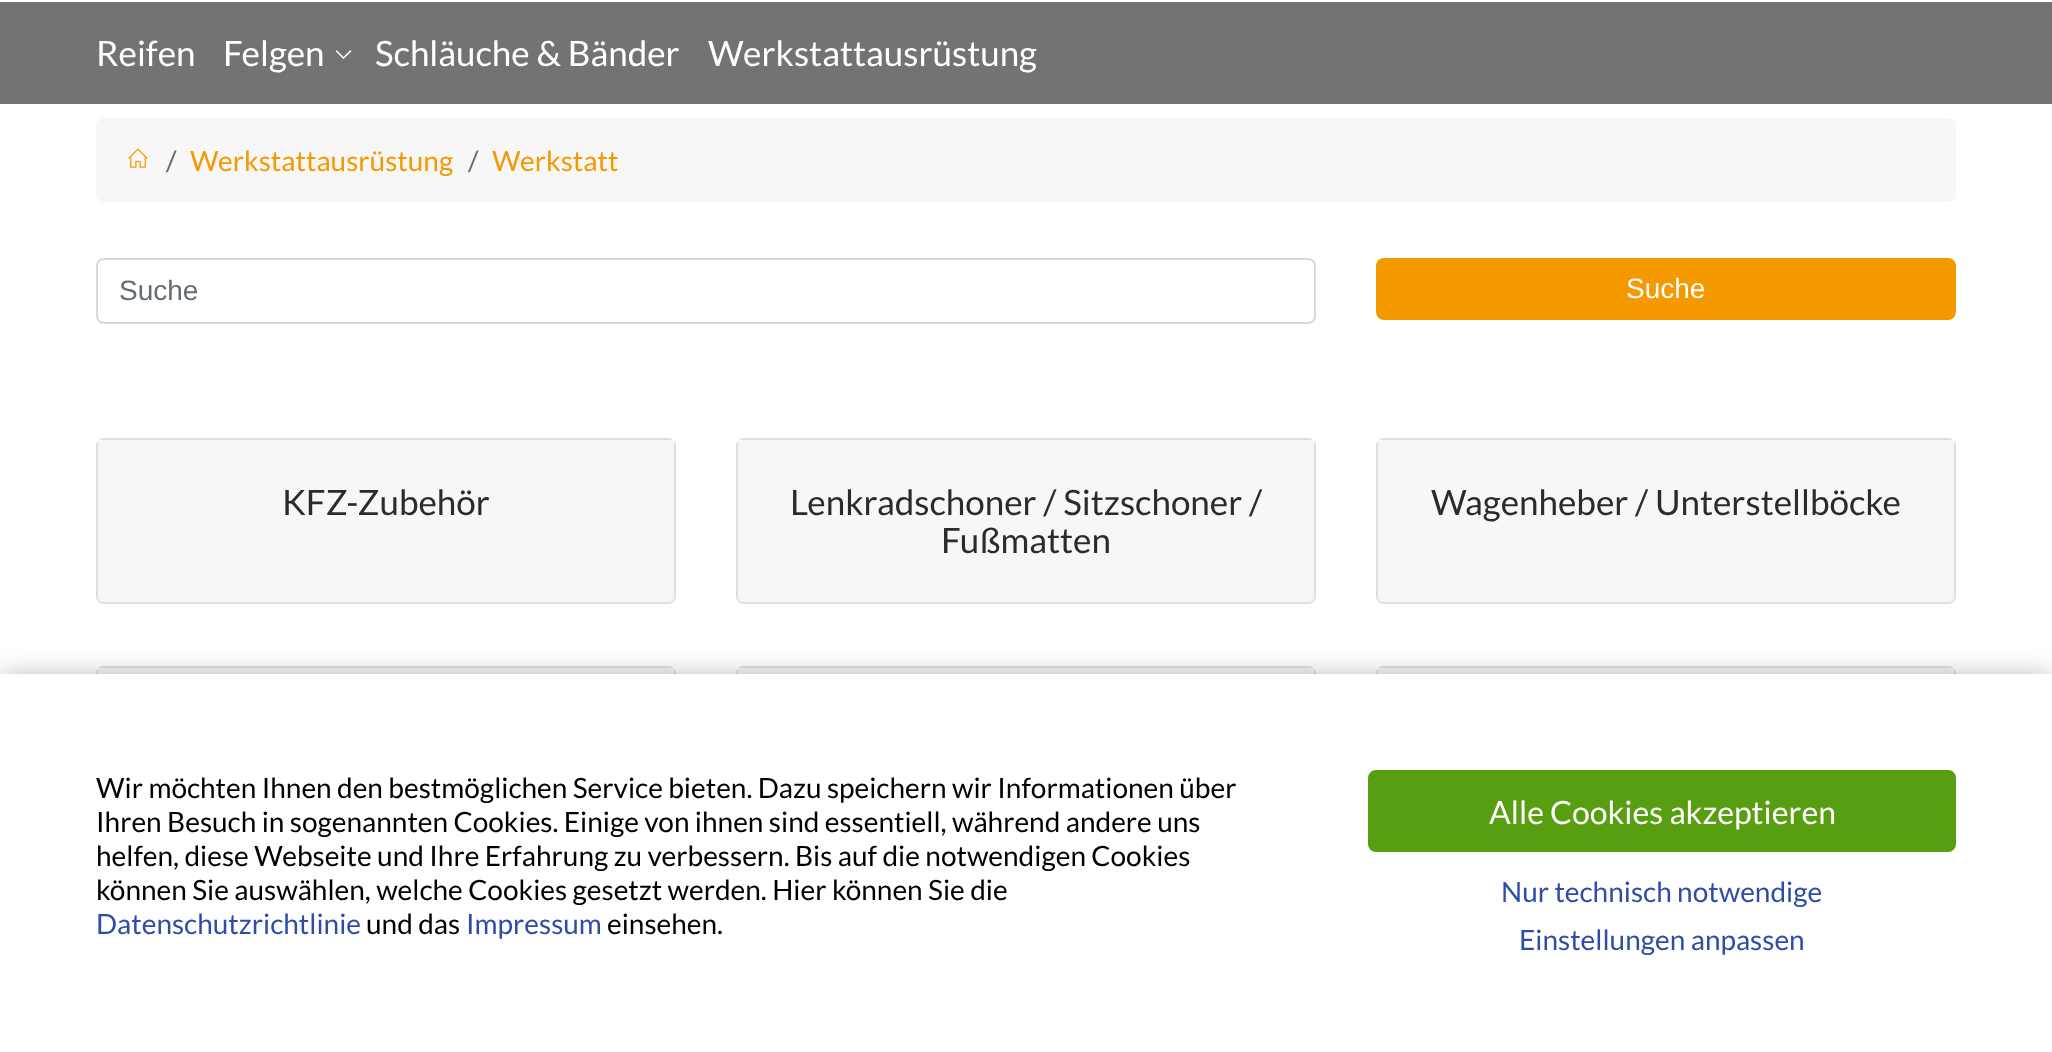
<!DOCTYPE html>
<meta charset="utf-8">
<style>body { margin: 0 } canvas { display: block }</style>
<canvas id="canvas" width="2052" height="1052"></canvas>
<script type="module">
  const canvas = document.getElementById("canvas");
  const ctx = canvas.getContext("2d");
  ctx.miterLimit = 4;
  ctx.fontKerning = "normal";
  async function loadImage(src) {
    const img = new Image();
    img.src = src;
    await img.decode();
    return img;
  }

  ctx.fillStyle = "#ffffff";
  ctx.fillRect(0, 0, 2052, 1052);
  ctx.fillStyle = "#737373";
  ctx.fillRect(0, 2, 2052, 102);
  ctx.font = "35px Lato";
  ctx.fillStyle = "#ffffff";
  ctx.fillText("Reifen", 96, 66);
  ctx.fillText("Felgen", 223, 66);
  ctx.drawImage(await loadImage("img1.png"), 335, 50, 17, 9);
  ctx.fillText("Schläuche & Bänder", 375, 66);
  ctx.fillText("Werkstattausrüstung", 708, 66);
  ctx.fillStyle = "#f7f7f7";
  ctx.beginPath();
  ctx.roundRect(96, 118, 1860, 84, 8);
  ctx.fill();
  ctx.drawImage(await loadImage("img2.png"), 128, 148, 20, 20);
  ctx.font = "28px Lato";
  ctx.fillStyle = "#636c72";
  ctx.fillText("/", 166, 171);
  ctx.fillStyle = "#f49900";
  ctx.fillText("Werkstattausrüstung", 190, 171);
  ctx.fillStyle = "#636c72";
  ctx.fillText("/", 468, 171);
  ctx.fillStyle = "#f49900";
  ctx.fillText("Werkstatt", 492, 171);
  ctx.beginPath();
  ctx.roundRect(97, 259, 1218, 64, 7);
  ctx.strokeStyle = "#d9d9d9";
  ctx.lineWidth = 2;
  ctx.stroke();
  ctx.font = "28px Liberation Sans";
  ctx.fillStyle = "#636c72";
  ctx.fillText("Suche", 119, 300);
  ctx.fillStyle = "#f49900";
  ctx.beginPath();
  ctx.roundRect(1376, 258, 580, 62, 8);
  ctx.fill();
  ctx.fillStyle = "#ffffff";
  ctx.fillText("Suche", 1626, 298);
  ctx.beginPath();
  ctx.roundRect(97, 439, 578, 164, 7);
  ctx.strokeStyle = "#dfdfdf";
  ctx.stroke();
  ctx.fillStyle = "#f7f7f9";
  ctx.beginPath();
  ctx.roundRect(98, 440, 576, 162, [0, 0, 5, 5]);
  ctx.fill();
  ctx.font = "35px Lato";
  ctx.fillStyle = "#292b2c";
  ctx.fillText("KFZ-Zubehör", 282, 515);
  ctx.beginPath();
  ctx.roundRect(737, 439, 578, 164, 7);
  ctx.stroke();
  ctx.fillStyle = "#f7f7f9";
  ctx.beginPath();
  ctx.roundRect(738, 440, 576, 162, [0, 0, 5, 5]);
  ctx.fill();
  ctx.fillStyle = "#292b2c";
  ctx.fillText("Lenkradschoner / Sitzschoner /", 790, 515);
  ctx.fillText("Fußmatten", 941, 553);
  ctx.beginPath();
  ctx.roundRect(1377, 439, 578, 164, 7);
  ctx.stroke();
  ctx.fillStyle = "#f7f7f9";
  ctx.beginPath();
  ctx.roundRect(1378, 440, 576, 162, [0, 0, 5, 5]);
  ctx.fill();
  ctx.fillStyle = "#292b2c";
  ctx.fillText("Wagenheber / Unterstellböcke", 1431, 515);
  ctx.beginPath();
  ctx.roundRect(97, 667, 578, 164, 7);
  ctx.stroke();
  ctx.fillStyle = "#f7f7f9";
  ctx.fillRect(98, 668, 576, 6);
  ctx.beginPath();
  ctx.roundRect(737, 667, 578, 164, 7);
  ctx.stroke();
  ctx.fillRect(738, 668, 576, 6);
  ctx.beginPath();
  ctx.roundRect(1377, 667, 578, 164, 7);
  ctx.stroke();
  ctx.fillRect(1378, 668, 576, 6);
  ctx.fillStyle = "rgba(0, 0, 0, 0.25)";
  ctx.filter = "blur(12px)";
  ctx.beginPath();
  ctx.rect(0, 674, 2052, 378);
  ctx.fill();
  ctx.filter = "none";
  ctx.fillStyle = "#ffffff";
  ctx.fillRect(0, 674, 2052, 378);
  ctx.font = "28px Lato";
  ctx.fillStyle = "#000000";
  ctx.fillText("Wir möchten Ihnen den bestmöglichen Service bieten. Dazu speichern wir Informationen über", 96, 798);
  ctx.fillText("Ihren Besuch in sogenannten Cookies. Einige von ihnen sind essentiell, während andere uns", 96, 832);
  ctx.fillText("helfen, diese Webseite und Ihre Erfahrung zu verbessern. Bis auf die notwendigen Cookies", 96, 866);
  ctx.fillText("können Sie auswählen, welche Cookies gesetzt werden. Hier können Sie die", 96, 900);
  ctx.fillStyle = "#2e4da7";
  ctx.fillText("Datenschutzrichtlinie", 96, 934);
  ctx.fillStyle = "#000000";
  ctx.fillText("und das", 366, 934);
  ctx.fillStyle = "#2e4da7";
  ctx.fillText("Impressum", 466, 934);
  ctx.fillStyle = "#000000";
  ctx.fillText("einsehen.", 607, 934);
  ctx.fillStyle = "#589e11";
  ctx.beginPath();
  ctx.roundRect(1369, 771, 586, 80, 7);
  ctx.fill();
  ctx.strokeStyle = "#589e11";
  ctx.stroke();
  ctx.font = "32px Lato";
  ctx.fillStyle = "#ffffff";
  ctx.fillText("Alle Cookies akzeptieren", 1489, 824);
  ctx.font = "28px Lato";
  ctx.fillStyle = "#2e4da7";
  ctx.fillText("Nur technisch notwendige", 1501, 902);
  ctx.fillText("Einstellungen anpassen", 1519, 950);
</script>
